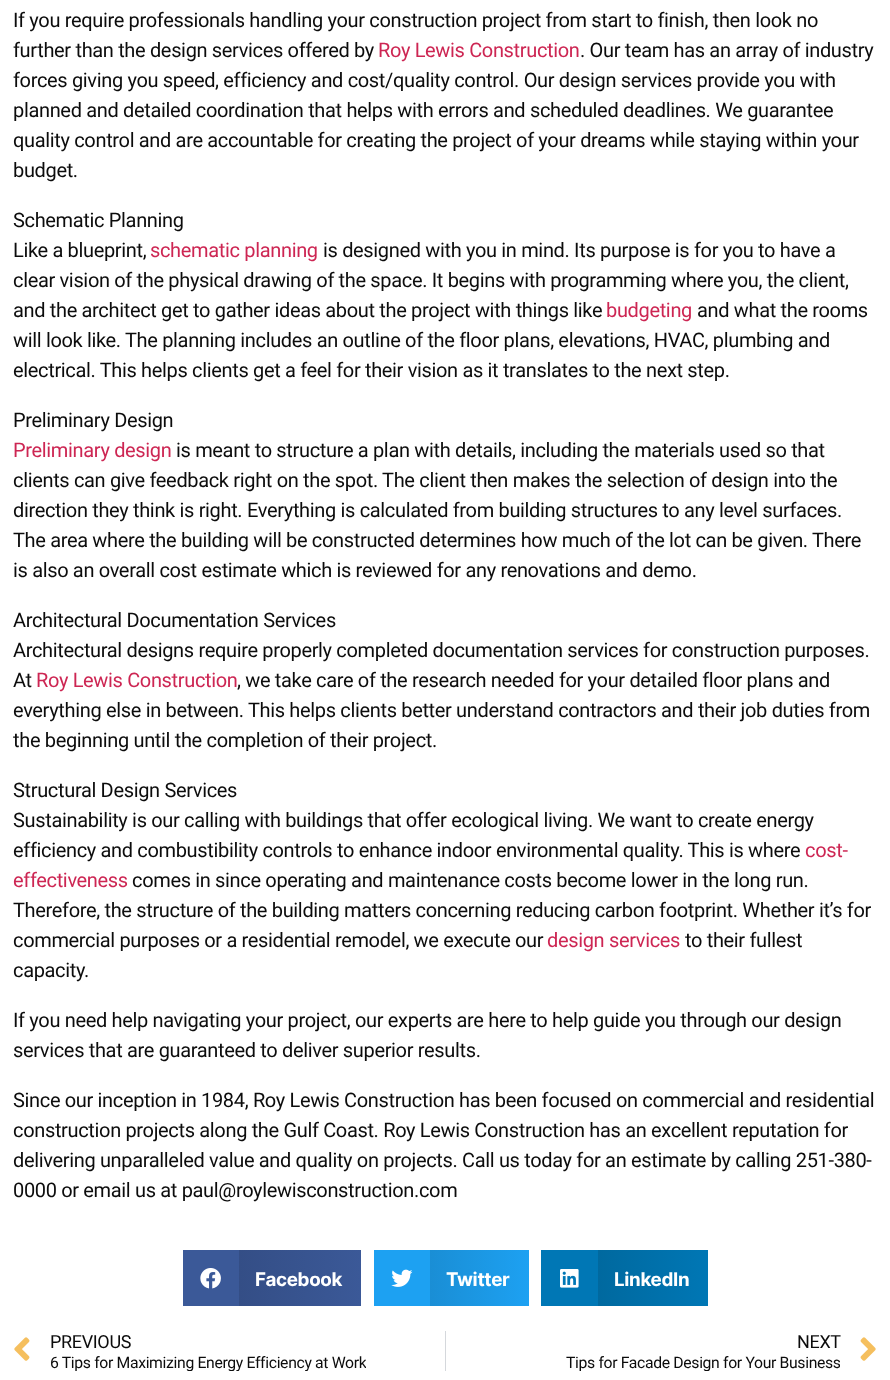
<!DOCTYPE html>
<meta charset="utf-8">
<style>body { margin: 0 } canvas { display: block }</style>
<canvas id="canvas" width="890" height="1380"></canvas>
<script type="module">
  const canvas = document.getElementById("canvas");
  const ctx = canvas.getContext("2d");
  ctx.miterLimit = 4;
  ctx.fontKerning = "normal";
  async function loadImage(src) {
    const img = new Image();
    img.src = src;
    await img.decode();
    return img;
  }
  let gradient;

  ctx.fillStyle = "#ffffff";
  ctx.fillRect(0, 0, 890, 1380);
  ctx.letterSpacing = "-0.34px";
  ctx.font = "20px Roboto";
  ctx.fillStyle = "#0c0c0c";
  ctx.fillText("If you require professionals handling your construction project from start to finish, then look no", 13, 27);
  ctx.fillText("further than the design services offered by", 13, 57);
  ctx.fillStyle = "#cd2653";
  ctx.fillText("Roy Lewis Construction", 378, 57);
  ctx.fillStyle = "#0c0c0c";
  ctx.fillText(". Our team has an array of industry", 580, 57);
  ctx.fillText("forces giving you speed, efficiency and cost/quality control. Our design services provide you with", 13, 87);
  ctx.fillText("planned and detailed coordination that helps with errors and scheduled deadlines. We guarantee", 13, 117);
  ctx.fillText("quality control and are accountable for creating the project of your dreams while staying within your", 13, 147);
  ctx.fillText("budget.", 13, 177);
  ctx.fillText("Schematic Planning", 13, 227);
  ctx.fillText("Like a blueprint,", 13, 257);
  ctx.fillStyle = "#cd2653";
  ctx.fillText("schematic planning", 150, 257);
  ctx.fillStyle = "#0c0c0c";
  ctx.fillText("is designed with you in mind. Its purpose is for you to have a", 323, 257);
  ctx.fillText("clear vision of the physical drawing of the space. It begins with programming where you, the client,", 13, 287);
  ctx.fillText("and the architect get to gather ideas about the project with things like", 13, 317);
  ctx.fillStyle = "#cd2653";
  ctx.fillText("budgeting", 606, 317);
  ctx.fillStyle = "#0c0c0c";
  ctx.fillText("and what the rooms", 697, 317);
  ctx.fillText("will look like. The planning includes an outline of the floor plans, elevations, HVAC, plumbing and", 13, 347);
  ctx.fillText("electrical. This helps clients get a feel for their vision as it translates to the next step.", 13, 377);
  ctx.fillText("Preliminary Design", 13, 427);
  ctx.fillStyle = "#cd2653";
  ctx.fillText("Preliminary design", 13, 457);
  ctx.fillStyle = "#0c0c0c";
  ctx.fillText("is meant to structure a plan with details, including the materials used so that", 176, 457);
  ctx.fillText("clients can give feedback right on the spot. The client then makes the selection of design into the", 13, 487);
  ctx.fillText("direction they think is right. Everything is calculated from building structures to any level surfaces.", 13, 517);
  ctx.fillText("The area where the building will be constructed determines how much of the lot can be given. There", 13, 547);
  ctx.fillText("is also an overall cost estimate which is reviewed for any renovations and demo.", 13, 577);
  ctx.fillText("Architectural Documentation Services", 13, 627);
  ctx.fillText("Architectural designs require properly completed documentation services for construction purposes.", 13, 657);
  ctx.fillText("At", 13, 687);
  ctx.fillStyle = "#cd2653";
  ctx.fillText("Roy Lewis Construction", 36, 687);
  ctx.fillStyle = "#0c0c0c";
  ctx.fillText(", we take care of the research needed for your detailed floor plans and", 237, 687);
  ctx.fillText("everything else in between. This helps clients better understand contractors and their job duties from", 13, 717);
  ctx.fillText("the beginning until the completion of their project.", 13, 747);
  ctx.fillText("Structural Design Services", 13, 797);
  ctx.fillText("Sustainability is our calling with buildings that offer ecological living. We want to create energy", 13, 827);
  ctx.fillText("efficiency and combustibility controls to enhance indoor environmental quality. This is where", 13, 857);
  ctx.fillStyle = "#cd2653";
  ctx.fillText("cost-", 805, 857);
  ctx.fillText("effectiveness", 13, 887);
  ctx.fillStyle = "#0c0c0c";
  ctx.fillText("comes in since operating and maintenance costs become lower in the long run.", 132, 887);
  ctx.fillText("Therefore, the structure of the building matters concerning reducing carbon footprint. Whether it’s for", 13, 917);
  ctx.fillText("commercial purposes or a residential remodel, we execute our", 13, 947);
  ctx.fillStyle = "#cd2653";
  ctx.fillText("design services", 547, 947);
  ctx.fillStyle = "#0c0c0c";
  ctx.fillText("to their fullest", 685, 947);
  ctx.fillText("capacity.", 13, 977);
  ctx.fillText("If you need help navigating your project, our experts are here to help guide you through our design", 13, 1027);
  ctx.fillText("services that are guaranteed to deliver superior results.", 13, 1057);
  ctx.fillText("Since our inception in 1984, Roy Lewis Construction has been focused on commercial and residential", 13, 1107);
  ctx.fillText("construction projects along the Gulf Coast. Roy Lewis Construction has an excellent reputation for", 13, 1137);
  ctx.fillText("delivering unparalleled value and quality on projects. Call us today for an estimate by calling 251-380-", 13, 1167);
  ctx.fillText("0000 or email us at paul@roylewisconstruction.com", 13, 1197);
  ctx.fillStyle = "#3b5998";
  ctx.fillRect(183, 1250, 56, 56);
  ctx.drawImage(await loadImage("img1.png"), 200, 1268, 21, 21);
  gradient = ctx.createLinearGradient(239, 1278, 361, 1278);
  gradient.addColorStop(0, "#344e86");
  gradient.addColorStop(1, "#3b5998");
  ctx.fillStyle = gradient;
  ctx.fillRect(239, 1250, 122, 56);
  ctx.font = "bold 18.75px Inter";
  ctx.fillStyle = "#ffffff";
  ctx.fillText("Facebook", 255, 1286);
  ctx.fillStyle = "#1da1f2";
  ctx.fillRect(374, 1250, 56, 56);
  ctx.drawImage(await loadImage("img2.png"), 391, 1269, 22, 18);
  gradient = ctx.createLinearGradient(430, 1278, 529, 1278);
  gradient.addColorStop(0, "#1a8ed5");
  gradient.addColorStop(1, "#1da1f2");
  ctx.fillStyle = gradient;
  ctx.fillRect(430, 1250, 99, 56);
  ctx.fillStyle = "#ffffff";
  ctx.fillText("Twitter", 446, 1286);
  ctx.fillStyle = "#0077b5";
  ctx.fillRect(541, 1250, 57, 56);
  ctx.drawImage(await loadImage("img3.png"), 560, 1269, 19, 19);
  gradient = ctx.createLinearGradient(598, 1278, 708, 1278);
  gradient.addColorStop(0, "#00699f");
  gradient.addColorStop(1, "#0077b5");
  ctx.fillStyle = gradient;
  ctx.fillRect(598, 1250, 110, 56);
  ctx.fillStyle = "#ffffff";
  ctx.fillText("LinkedIn", 614, 1286);
  ctx.drawImage(await loadImage("img4.png"), 14, 1337, 16, 24);
  ctx.font = "18px Roboto";
  ctx.fillStyle = "#0c0c0c";
  ctx.fillText("PREVIOUS", 50, 1348);
  ctx.save();
  ctx.beginPath();
  ctx.rect(50, 1353, 316, 18);
  ctx.clip();
  ctx.font = "15.75px Roboto";
  ctx.fillText("6 Tips for Maximizing Energy Efficiency at Work", 50, 1368);
  ctx.restore();
  ctx.fillStyle = "#d5d8dc";
  ctx.fillRect(445, 1331, 1, 40);
  ctx.fillStyle = "#0c0c0c";
  ctx.fillText("NEXT", 797, 1348);
  ctx.save();
  ctx.beginPath();
  ctx.rect(566, 1353, 274, 18);
  ctx.clip();
  ctx.font = "15.75px Roboto";
  ctx.fillText("Tips for Facade Design for Your Business", 566, 1368);
  ctx.restore();
  ctx.drawImage(await loadImage("img5.png"), 860, 1337, 16, 24);
</script>
